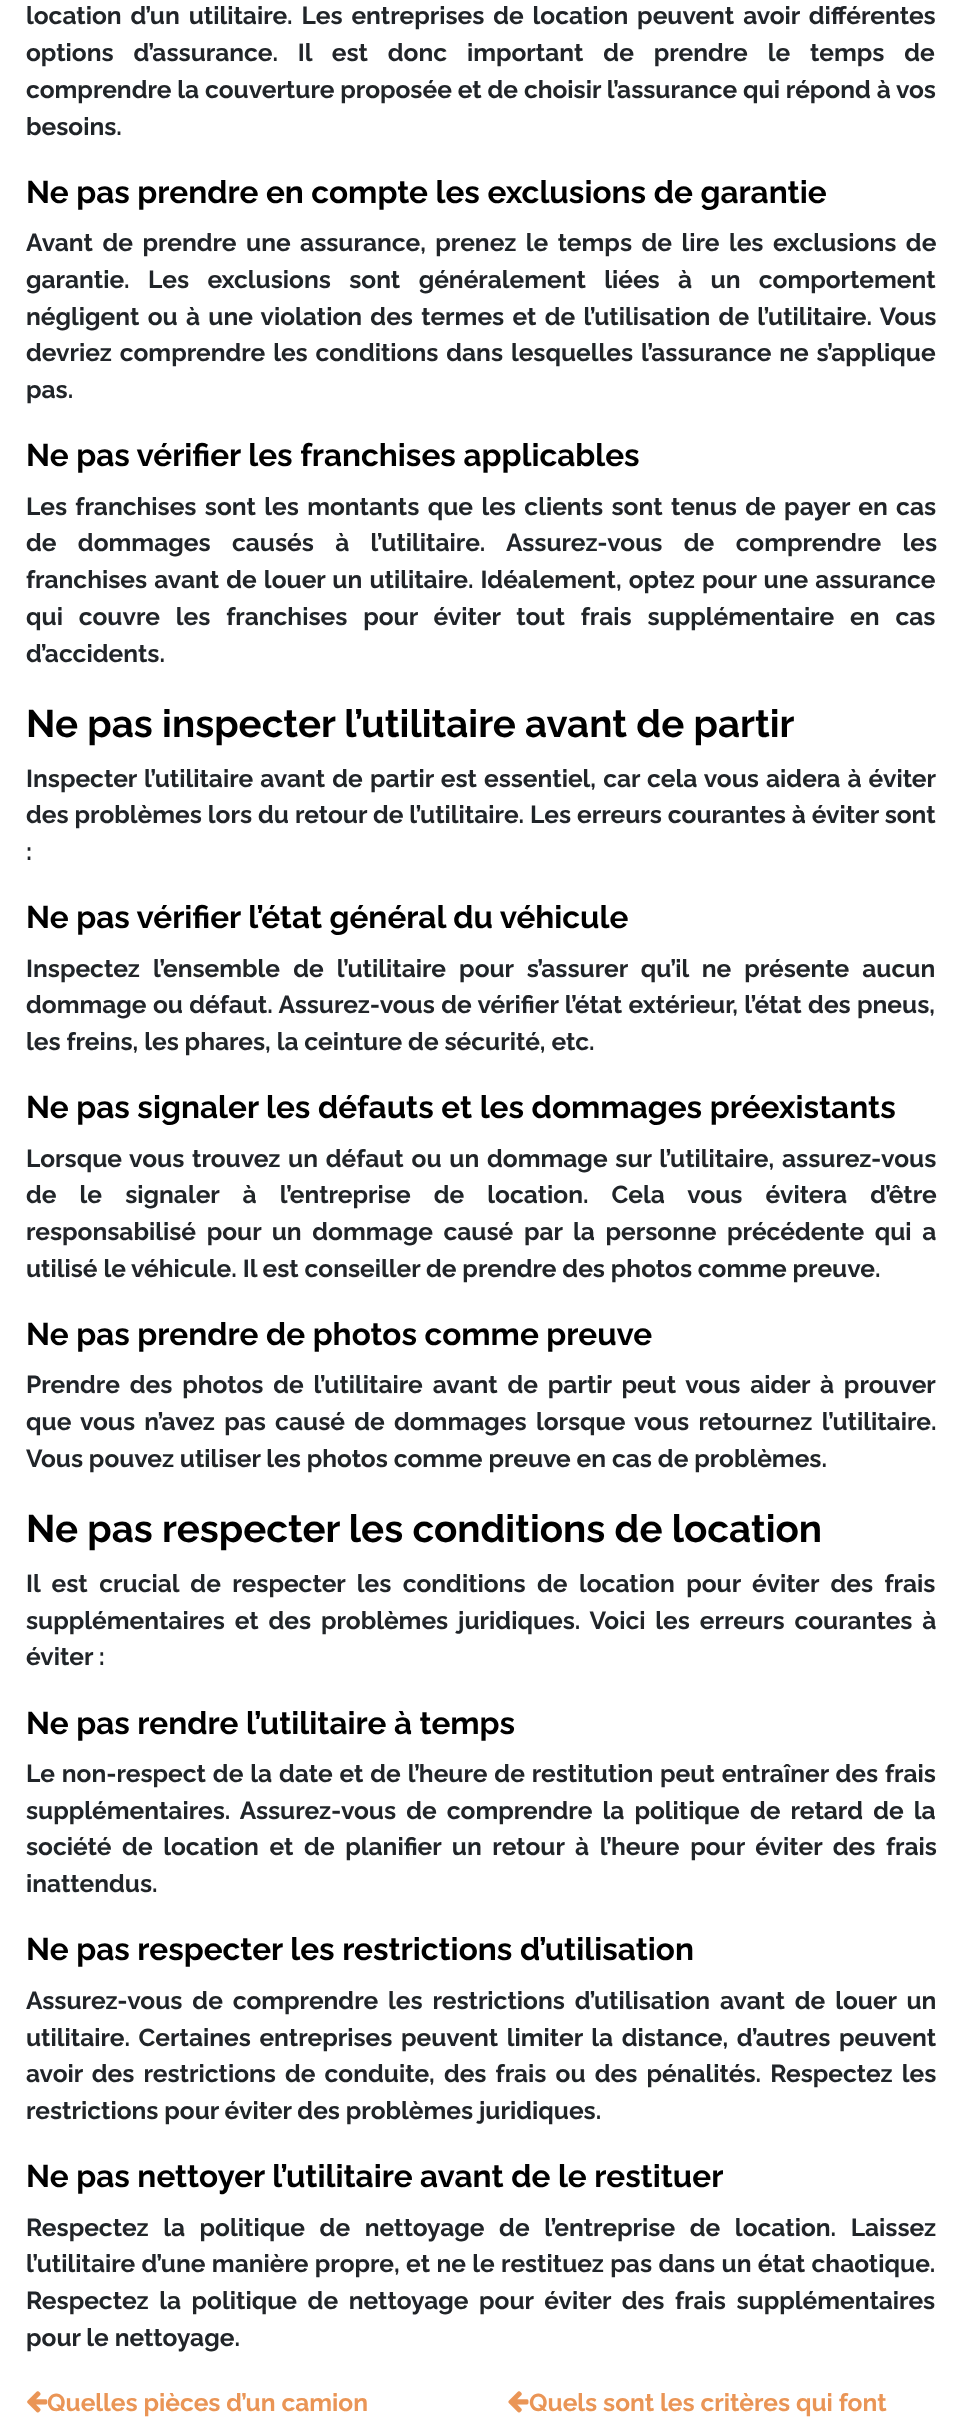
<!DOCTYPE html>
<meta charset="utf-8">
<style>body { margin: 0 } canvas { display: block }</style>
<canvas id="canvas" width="962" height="2418"></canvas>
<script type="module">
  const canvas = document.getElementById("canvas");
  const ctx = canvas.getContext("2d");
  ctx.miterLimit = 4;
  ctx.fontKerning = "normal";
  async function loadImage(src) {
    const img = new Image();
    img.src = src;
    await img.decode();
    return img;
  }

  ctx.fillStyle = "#ffffff";
  ctx.fillRect(0, 0, 962, 2418);
  ctx.wordSpacing = "3px";
  ctx.font = "100 24.5px Raleway";
  ctx.fillStyle = "#212529";
  ctx.fillText("location d’un utilitaire. Les entreprises de location peuvent avoir différentes", 26, 24);
  ctx.wordSpacing = "14px";
  ctx.fillText("options d’assurance. Il est donc important de prendre le temps de", 26, 61);
  ctx.wordSpacing = "0px";
  ctx.fillText("comprendre la couverture proposée et de choisir l’assurance qui répond à vos", 26, 98);
  ctx.fillText("besoins.", 26, 135);
  ctx.font = "100 31.5px Raleway";
  ctx.fillStyle = "#000000";
  ctx.fillText("Ne pas prendre en compte les exclusions de garantie", 26, 203);
  ctx.wordSpacing = "3.6px";
  ctx.font = "100 24.5px Raleway";
  ctx.fillStyle = "#212529";
  ctx.fillText("Avant de prendre une assurance, prenez le temps de lire les exclusions de", 26, 251);
  ctx.wordSpacing = "12.5px";
  ctx.fillText("garantie. Les exclusions sont généralement liées à un comportement", 26, 288);
  ctx.wordSpacing = "2.4px";
  ctx.fillText("négligent ou à une violation des termes et de l’utilisation de l’utilitaire. Vous", 26, 325);
  ctx.wordSpacing = "2px";
  ctx.fillText("devriez comprendre les conditions dans lesquelles l’assurance ne s’applique", 26, 361);
  ctx.wordSpacing = "0px";
  ctx.fillText("pas.", 26, 398);
  ctx.font = "100 31.5px Raleway";
  ctx.fillStyle = "#000000";
  ctx.fillText("Ne pas vérifier les franchises applicables", 26, 466);
  ctx.wordSpacing = "2.5px";
  ctx.font = "100 24.5px Raleway";
  ctx.fillStyle = "#212529";
  ctx.fillText("Les franchises sont les montants que les clients sont tenus de payer en cas", 26, 515);
  ctx.wordSpacing = "15.5px";
  ctx.fillText("de dommages causés à l’utilitaire. Assurez-vous de comprendre les", 26, 551);
  ctx.wordSpacing = "1.25px";
  ctx.fillText("franchises avant de louer un utilitaire. Idéalement, optez pour une assurance", 26, 588);
  ctx.wordSpacing = "10px";
  ctx.fillText("qui couvre les franchises pour éviter tout frais supplémentaire en cas", 26, 625);
  ctx.wordSpacing = "0px";
  ctx.fillText("d’accidents.", 26, 662);
  ctx.font = "100 38.5px Raleway";
  ctx.fillStyle = "#000000";
  ctx.fillText("Ne pas inspecter l’utilitaire avant de partir", 26, 737);
  ctx.wordSpacing = "1.25px";
  ctx.font = "100 24.5px Raleway";
  ctx.fillStyle = "#212529";
  ctx.fillText("Inspecter l’utilitaire avant de partir est essentiel, car cela vous aidera à éviter", 26, 787);
  ctx.wordSpacing = "0.1px";
  ctx.fillText("des problèmes lors du retour de l’utilitaire. Les erreurs courantes à éviter sont", 26, 823);
  ctx.wordSpacing = "0px";
  ctx.fillText(":", 26, 860);
  ctx.font = "100 31.5px Raleway";
  ctx.fillStyle = "#000000";
  ctx.fillText("Ne pas vérifier l’état général du véhicule", 26, 928);
  ctx.wordSpacing = "7.25px";
  ctx.font = "100 24.5px Raleway";
  ctx.fillStyle = "#212529";
  ctx.fillText("Inspectez l’ensemble de l’utilitaire pour s’assurer qu’il ne présente aucun", 26, 977);
  ctx.wordSpacing = "0.5px";
  ctx.fillText("dommage ou défaut. Assurez-vous de vérifier l’état extérieur, l’état des pneus,", 26, 1013);
  ctx.wordSpacing = "0px";
  ctx.fillText("les freins, les phares, la ceinture de sécurité, etc.", 26, 1050);
  ctx.font = "100 31.5px Raleway";
  ctx.fillStyle = "#000000";
  ctx.fillText("Ne pas signaler les défauts et les dommages préexistants", 26, 1118);
  ctx.wordSpacing = "1.9px";
  ctx.font = "100 24.5px Raleway";
  ctx.fillStyle = "#212529";
  ctx.fillText("Lorsque vous trouvez un défaut ou un dommage sur l’utilitaire, assurez-vous", 26, 1167);
  ctx.wordSpacing = "17.25px";
  ctx.fillText("de le signaler à l’entreprise de location. Cela vous évitera d’être", 26, 1203);
  ctx.wordSpacing = "4.75px";
  ctx.fillText("responsabilisé pour un dommage causé par la personne précédente qui a", 26, 1240);
  ctx.wordSpacing = "0px";
  ctx.fillText("utilisé le véhicule. Il est conseiller de prendre des photos comme preuve.", 26, 1277);
  ctx.font = "100 31.5px Raleway";
  ctx.fillStyle = "#000000";
  ctx.fillText("Ne pas prendre de photos comme preuve", 26, 1345);
  ctx.wordSpacing = "4px";
  ctx.font = "100 24.5px Raleway";
  ctx.fillStyle = "#212529";
  ctx.fillText("Prendre des photos de l’utilitaire avant de partir peut vous aider à prouver", 26, 1393);
  ctx.wordSpacing = "3.4px";
  ctx.fillText("que vous n’avez pas causé de dommages lorsque vous retournez l’utilitaire.", 26, 1430);
  ctx.wordSpacing = "0px";
  ctx.fillText("Vous pouvez utiliser les photos comme preuve en cas de problèmes.", 26, 1467);
  ctx.font = "100 38.5px Raleway";
  ctx.fillStyle = "#000000";
  ctx.fillText("Ne pas respecter les conditions de location", 26, 1542);
  ctx.wordSpacing = "5.6px";
  ctx.font = "100 24.5px Raleway";
  ctx.fillStyle = "#212529";
  ctx.fillText("Il est crucial de respecter les conditions de location pour éviter des frais", 26, 1592);
  ctx.wordSpacing = "4px";
  ctx.fillText("supplémentaires et des problèmes juridiques. Voici les erreurs courantes à", 26, 1629);
  ctx.wordSpacing = "0px";
  ctx.fillText("éviter :", 26, 1665);
  ctx.font = "100 31.5px Raleway";
  ctx.fillStyle = "#000000";
  ctx.fillText("Ne pas rendre l’utilitaire à temps", 26, 1734);
  ctx.wordSpacing = "1px";
  ctx.font = "100 24.5px Raleway";
  ctx.fillStyle = "#212529";
  ctx.fillText("Le non-respect de la date et de l’heure de restitution peut entraîner des frais", 26, 1782);
  ctx.wordSpacing = "4.25px";
  ctx.fillText("supplémentaires. Assurez-vous de comprendre la politique de retard de la", 26, 1819);
  ctx.wordSpacing = "4.75px";
  ctx.fillText("société de location et de planifier un retour à l’heure pour éviter des frais", 26, 1855);
  ctx.wordSpacing = "0px";
  ctx.fillText("inattendus.", 26, 1892);
  ctx.font = "100 31.5px Raleway";
  ctx.fillStyle = "#000000";
  ctx.fillText("Ne pas respecter les restrictions d’utilisation", 26, 1960);
  ctx.wordSpacing = "4px";
  ctx.font = "100 24.5px Raleway";
  ctx.fillStyle = "#212529";
  ctx.fillText("Assurez-vous de comprendre les restrictions d’utilisation avant de louer un", 26, 2009);
  ctx.wordSpacing = "2.75px";
  ctx.fillText("utilitaire. Certaines entreprises peuvent limiter la distance, d’autres peuvent", 26, 2046);
  ctx.wordSpacing = "3.25px";
  ctx.fillText("avoir des restrictions de conduite, des frais ou des pénalités. Respectez les", 26, 2082);
  ctx.wordSpacing = "0px";
  ctx.fillText("restrictions pour éviter des problèmes juridiques.", 26, 2119);
  ctx.font = "100 31.5px Raleway";
  ctx.fillStyle = "#000000";
  ctx.fillText("Ne pas nettoyer l’utilitaire avant de le restituer", 26, 2187);
  ctx.wordSpacing = "8.75px";
  ctx.font = "100 24.5px Raleway";
  ctx.fillStyle = "#212529";
  ctx.fillText("Respectez la politique de nettoyage de l’entreprise de location. Laissez", 26, 2236);
  ctx.wordSpacing = "0.5px";
  ctx.fillText("l’utilitaire d’une manière propre, et ne le restituez pas dans un état chaotique.", 26, 2272);
  ctx.wordSpacing = "4.75px";
  ctx.fillText("Respectez la politique de nettoyage pour éviter des frais supplémentaires", 26, 2309);
  ctx.wordSpacing = "0px";
  ctx.fillText("pour le nettoyage.", 26, 2346);
  ctx.drawImage(await loadImage("img1.png"), 27, 2391, 21, 22);
  ctx.fillStyle = "#ea9556";
  ctx.fillText("Quelles pièces d’un camion", 47, 2411);
  ctx.drawImage(await loadImage("img2.png"), 508, 2391, 21, 22);
  ctx.fillText("Quels sont les critères qui font", 529, 2411);
</script>
